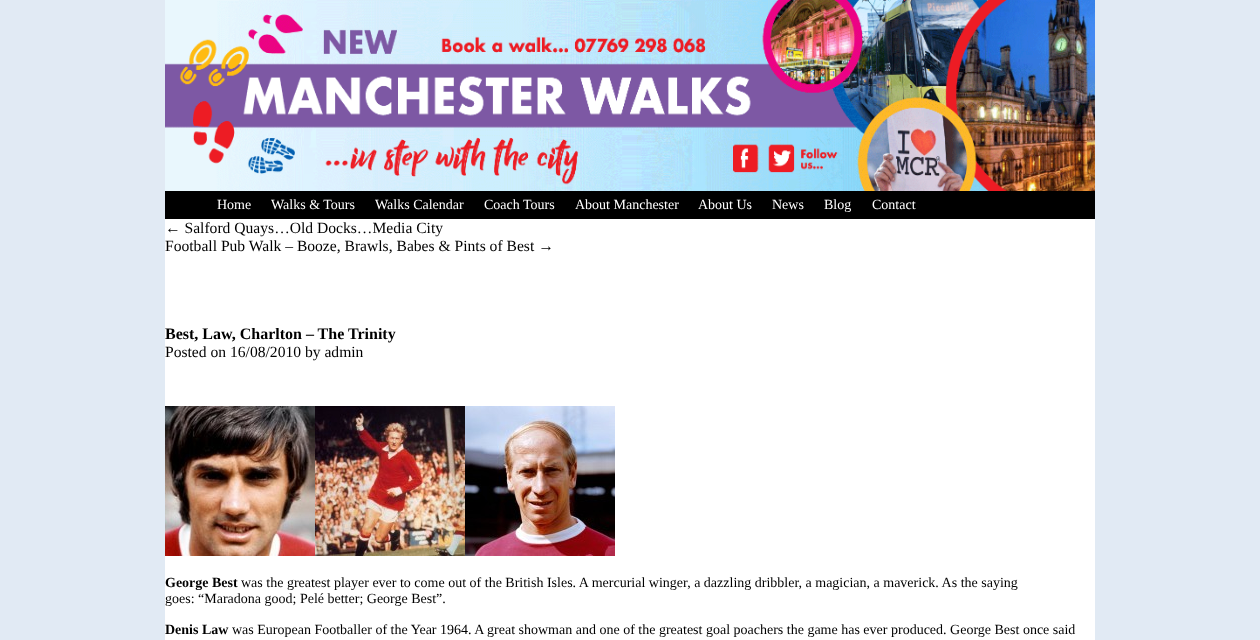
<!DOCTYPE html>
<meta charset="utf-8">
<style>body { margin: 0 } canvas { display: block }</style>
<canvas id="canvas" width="1260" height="640"></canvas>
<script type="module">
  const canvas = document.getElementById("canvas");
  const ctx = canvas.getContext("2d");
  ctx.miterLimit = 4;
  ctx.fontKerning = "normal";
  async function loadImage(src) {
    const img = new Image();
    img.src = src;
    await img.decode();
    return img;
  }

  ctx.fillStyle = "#e1eaf4";
  ctx.fillRect(0, 0, 1260, 640);
  ctx.fillStyle = "#ffffff";
  ctx.fillRect(165, 219, 930, 421);
  ctx.drawImage(await loadImage("img1.png"), 165, 0, 930, 191);
  ctx.fillStyle = "#000000";
  ctx.fillRect(165, 191, 930, 28);
  ctx.font = "14px Liberation Serif";
  ctx.fillStyle = "#ffffff";
  ctx.fillText("Home", 217, 209);
  ctx.fillText("Walks & Tours", 271, 209);
  ctx.fillText("Walks Calendar", 375, 209);
  ctx.fillText("Coach Tours", 484, 209);
  ctx.fillText("About Manchester", 575, 209);
  ctx.fillText("About Us", 698, 209);
  ctx.fillText("News", 772, 209);
  ctx.fillText("Blog", 824, 209);
  ctx.fillText("Contact", 872, 209);
  ctx.font = "15.6px Liberation Serif";
  ctx.fillStyle = "#000000";
  ctx.fillText("← Salford Quays…Old Docks…Media City", 165, 233);
  ctx.fillText("Football Pub Walk – Booze, Brawls, Babes & Pints of Best →", 165, 251);
  ctx.font = "bold 16px Liberation Serif";
  ctx.fillText("Best, Law, Charlton – The Trinity", 165, 339);
  ctx.font = "15.6px Liberation Serif";
  ctx.fillText("Posted on 16/08/2010 by admin", 165, 357);
  ctx.drawImage(await loadImage("img2.png"), 165, 406, 150, 150);
  ctx.drawImage(await loadImage("img3.png"), 315, 406, 150, 150);
  ctx.drawImage(await loadImage("img4.png"), 465, 406, 150, 150);
  ctx.font = "bold 14px Liberation Serif";
  ctx.fillText("George Best", 165, 587);
  ctx.font = "14px Liberation Serif";
  ctx.fillText("was the greatest player ever to come out of the British Isles. A mercurial winger, a dazzling dribbler, a magician, a maverick. As the saying", 241, 587);
  ctx.fillText("goes: “Maradona good; Pelé better; George Best”.", 165, 603);
  ctx.font = "bold 14px Liberation Serif";
  ctx.fillText("Denis Law", 165, 634);
  ctx.font = "14px Liberation Serif";
  ctx.fillText("was European Footballer of the Year 1964. A great showman and one of the greatest goal poachers the game has ever produced. George Best once said", 232, 634);
</script>
